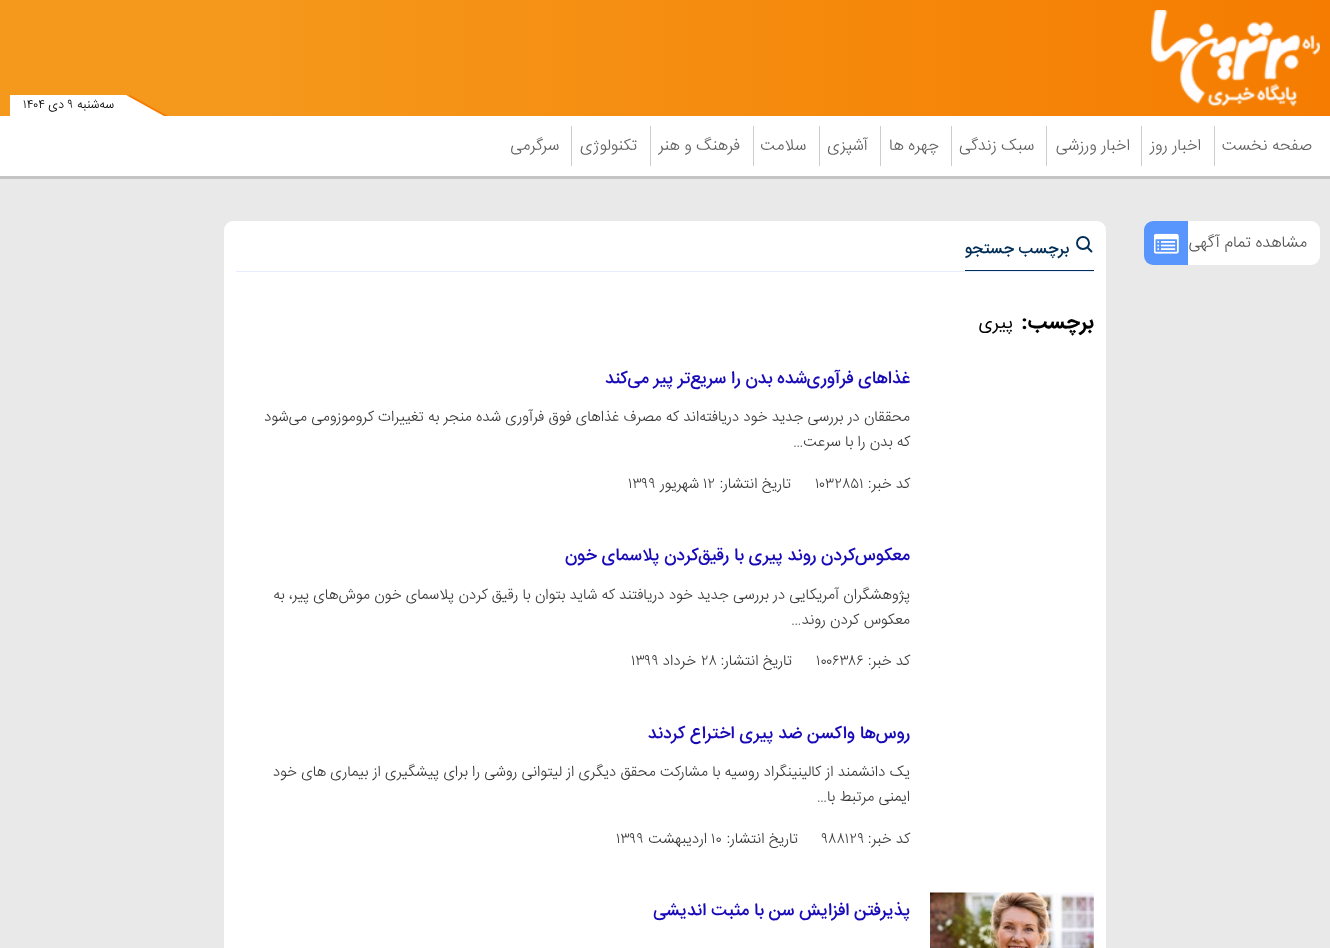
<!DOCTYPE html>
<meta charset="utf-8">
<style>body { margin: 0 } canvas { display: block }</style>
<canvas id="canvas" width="1330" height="948"></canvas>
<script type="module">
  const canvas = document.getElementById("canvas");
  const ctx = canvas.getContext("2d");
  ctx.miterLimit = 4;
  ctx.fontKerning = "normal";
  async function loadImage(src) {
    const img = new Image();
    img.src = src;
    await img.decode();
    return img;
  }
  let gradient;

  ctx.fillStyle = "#e9e9e9";
  ctx.fillRect(0, 0, 1330, 948);
  gradient = ctx.createLinearGradient(0, 58, 1330, 58);
  gradient.addColorStop(0, "#f5991c");
  gradient.addColorStop(0.16, "#f5991c");
  gradient.addColorStop(1, "#f57c00");
  ctx.fillStyle = gradient;
  ctx.fillRect(0, 0, 1330, 116);
  ctx.drawImage(await loadImage("img1.png"), 1151, 10, 169, 97);
  ctx.fillStyle = "#ffffff";
  ctx.fillRect(10, 95, 116, 21);
  ctx.fillStyle = "#f57c00";
  ctx.beginPath();
  ctx.moveTo(168, 116);
  ctx.lineTo(92, 116);
  ctx.lineTo(130, 95);
  ctx.closePath();
  ctx.fill();
  ctx.fillStyle = "#ffffff";
  ctx.beginPath();
  ctx.moveTo(164, 116);
  ctx.lineTo(89, 116);
  ctx.lineTo(126, 95);
  ctx.closePath();
  ctx.fill();
  ctx.font = "300 12.5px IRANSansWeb";
  ctx.fillStyle = "#000000";
  ctx.fillText("۹", 67, 108);
  ctx.direction = "rtl";
  ctx.fillText("سه‌شنبه", 114, 108);
  ctx.fillText("دی", 64, 108);
  ctx.direction = "ltr";
  ctx.fillText("۱۴۰۴", 23, 108);
  ctx.fillStyle = "#ffffff";
  ctx.fillRect(0, 116, 1330, 60);
  ctx.fillStyle = "#c4c4c4";
  ctx.fillRect(0, 176, 1330, 3);
  ctx.fillStyle = "#cccccc";
  ctx.fillRect(1214, 126, 1, 40);
  ctx.direction = "rtl";
  ctx.font = "300 16.25px IRANSansWeb";
  ctx.fillStyle = "#626262";
  ctx.fillText("صفحه نخست", 1312, 150);
  ctx.fillStyle = "#cccccc";
  ctx.fillRect(1141, 126, 1, 40);
  ctx.fillStyle = "#626262";
  ctx.fillText("اخبار روز", 1201, 150);
  ctx.fillStyle = "#cccccc";
  ctx.fillRect(1046, 126, 1, 40);
  ctx.fillStyle = "#626262";
  ctx.fillText("اخبار ورزشی", 1130, 150);
  ctx.fillStyle = "#cccccc";
  ctx.fillRect(951, 126, 1, 40);
  ctx.fillStyle = "#626262";
  ctx.fillText("سبک زندگی", 1034, 150);
  ctx.fillStyle = "#cccccc";
  ctx.fillRect(880, 126, 1, 40);
  ctx.fillStyle = "#626262";
  ctx.fillText("چهره ها", 939, 150);
  ctx.fillStyle = "#cccccc";
  ctx.fillRect(819, 126, 1, 40);
  ctx.fillStyle = "#626262";
  ctx.fillText("آشپزی", 868, 150);
  ctx.fillStyle = "#cccccc";
  ctx.fillRect(753, 126, 1, 40);
  ctx.fillStyle = "#626262";
  ctx.fillText("سلامت", 806, 150);
  ctx.fillStyle = "#cccccc";
  ctx.fillRect(650, 126, 1, 40);
  ctx.fillStyle = "#626262";
  ctx.fillText("فرهنگ و هنر", 740, 150);
  ctx.fillStyle = "#cccccc";
  ctx.fillRect(571, 126, 1, 40);
  ctx.fillStyle = "#626262";
  ctx.fillText("تکنولوژی", 637, 150);
  ctx.fillText("سرگرمی", 559, 150);
  ctx.fillStyle = "#ffffff";
  ctx.beginPath();
  ctx.roundRect(1144, 221, 176, 44, 9);
  ctx.fill();
  ctx.fillStyle = "#555555";
  ctx.fillText("مشاهده تمام آگهی ها", 1307, 247);
  ctx.fillStyle = "#5895fc";
  ctx.beginPath();
  ctx.roundRect(1144, 221, 44, 44, [9, 0, 0, 9]);
  ctx.fill();
  ctx.drawImage(await loadImage("img2.png"), 1154, 233, 25, 21);
  ctx.fillStyle = "#ffffff";
  ctx.beginPath();
  ctx.roundRect(224, 221, 882, 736, 9);
  ctx.fill();
  ctx.fillStyle = "#e6efff";
  ctx.fillRect(236, 271, 858, 1);
  ctx.fillStyle = "#002d56";
  ctx.fillRect(965, 270, 129, 1);
  ctx.beginPath();
  ctx.moveTo(1088, 248);
  ctx.lineTo(1091.5, 251.5);
  ctx.strokeStyle = "#002d56";
  ctx.lineWidth = 1.9;
  ctx.lineCap = "round";
  ctx.lineJoin = "round";
  ctx.stroke();
  ctx.beginPath();
  ctx.arc(1083, 243, 6, 0, Math.PI * 2);
  ctx.stroke();
  ctx.font = "500 16.25px IRANSansWeb";
  ctx.fillText("برچسب جستجو", 1069, 253);
  ctx.font = "bold 21px IRANSansWeb";
  ctx.fillStyle = "#000000";
  ctx.fillText("برچسب:", 1094, 328);
  ctx.font = "18px IRANSansWeb";
  ctx.fillText("پیری", 1013, 328);
  ctx.font = "500 17.5px IRANSansWeb";
  ctx.fillStyle = "#180ab7";
  ctx.fillText("غذا‌های فرآوری‌شده بدن را سریع‌تر پیر می‌کند", 910, 383);
  ctx.font = "300 15px IRANSansWeb";
  ctx.fillStyle = "#3a3a3b";
  ctx.fillText("محققان در بررسی جدید خود دریافته‌اند که مصرف غذا‌های فوق فرآوری شده منجر به تغییرات کروموزومی می‌شود", 910, 421);
  ctx.fillText("که بدن را با سرعت…", 910, 446);
  ctx.fillText("کد خبر:", 910, 488);
  ctx.direction = "ltr";
  ctx.fillText("۱۰۳۲۸۵۱", 815, 488);
  ctx.direction = "rtl";
  ctx.fillText("تاریخ انتشار:", 791, 488);
  ctx.direction = "ltr";
  ctx.fillText("۱۲", 703, 488);
  ctx.direction = "rtl";
  ctx.fillText("شهریور", 699, 488);
  ctx.direction = "ltr";
  ctx.fillText("۱۳۹۹", 628, 488);
  ctx.direction = "rtl";
  ctx.font = "500 17.5px IRANSansWeb";
  ctx.fillStyle = "#180ab7";
  ctx.fillText("معکوس‌کردن روند پیری با رقیق‌کردن پلاسمای خون", 910, 560);
  ctx.font = "300 15px IRANSansWeb";
  ctx.fillStyle = "#3a3a3b";
  ctx.fillText("پژوهشگران آمریکایی در بررسی جدید خود دریافتند که شاید بتوان با رقیق کردن پلاسمای خون موش‌های پیر، به", 910, 599);
  ctx.fillText("معکوس کردن روند…", 910, 624);
  ctx.fillText("کد خبر:", 910, 665);
  ctx.direction = "ltr";
  ctx.fillText("۱۰۰۶۳۸۶", 816, 665);
  ctx.direction = "rtl";
  ctx.fillText("تاریخ انتشار:", 792, 665);
  ctx.direction = "ltr";
  ctx.fillText("۲۸", 701, 665);
  ctx.direction = "rtl";
  ctx.fillText("خرداد", 696, 665);
  ctx.direction = "ltr";
  ctx.fillText("۱۳۹۹", 631, 665);
  ctx.direction = "rtl";
  ctx.font = "500 17.5px IRANSansWeb";
  ctx.fillStyle = "#180ab7";
  ctx.fillText("روس‌ها واکسن ضد پیری اختراع کردند", 910, 738);
  ctx.font = "300 15px IRANSansWeb";
  ctx.fillStyle = "#3a3a3b";
  ctx.fillText("یک دانشمند از کالینینگراد روسیه با مشارکت محقق دیگری از لیتوانی روشی را برای پیشگیری از بیماری های خود", 910, 776);
  ctx.fillText("ایمنی مرتبط با…", 910, 801);
  ctx.fillText("کد خبر:", 910, 843);
  ctx.direction = "ltr";
  ctx.fillText("۹۸۸۱۲۹", 822, 843);
  ctx.direction = "rtl";
  ctx.fillText("تاریخ انتشار:", 798, 843);
  ctx.direction = "ltr";
  ctx.fillText("۱۰", 711, 843);
  ctx.direction = "rtl";
  ctx.fillText("اردیبهشت", 707, 843);
  ctx.direction = "ltr";
  ctx.fillText("۱۳۹۹", 616, 843);
  ctx.drawImage(await loadImage("img3.png"), 930, 892, 164, 56);
  ctx.direction = "rtl";
  ctx.font = "500 17.5px IRANSansWeb";
  ctx.fillStyle = "#180ab7";
  ctx.fillText("پذیرفتن افزایش سن با مثبت اندیشی", 910, 915);
</script>
